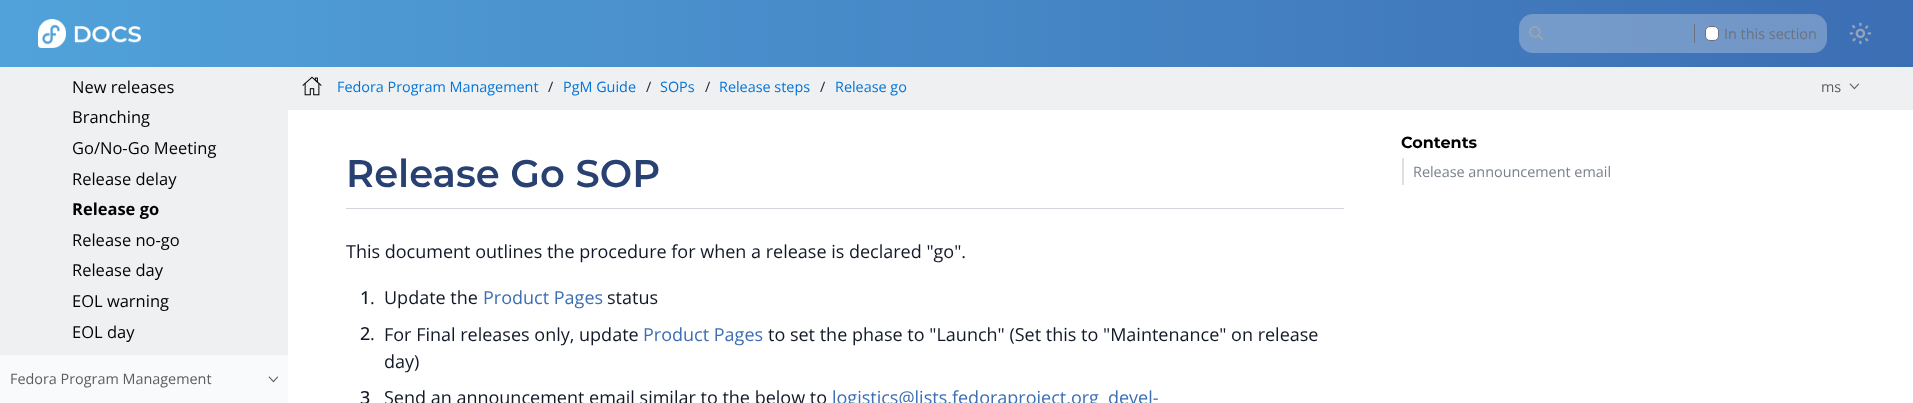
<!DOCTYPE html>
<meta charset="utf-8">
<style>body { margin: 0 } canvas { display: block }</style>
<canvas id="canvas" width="1913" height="403"></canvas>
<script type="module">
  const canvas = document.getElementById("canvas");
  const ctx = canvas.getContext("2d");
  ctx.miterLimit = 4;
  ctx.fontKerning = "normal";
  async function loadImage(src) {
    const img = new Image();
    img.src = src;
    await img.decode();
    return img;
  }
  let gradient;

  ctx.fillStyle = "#ffffff";
  ctx.fillRect(0, 0, 1913, 403);
  gradient = ctx.createLinearGradient(1913, 33, 0, 34);
  gradient.addColorStop(0, "#3c6eb4");
  gradient.addColorStop(1, "#51a2da");
  ctx.fillStyle = gradient;
  ctx.fillRect(0, 0, 1913, 67);
  ctx.drawImage(await loadImage("img1.png"), 38, 19, 103, 29);
  ctx.fillStyle = "rgba(239, 239, 239, 0.3)";
  ctx.beginPath();
  ctx.roundRect(1519, 14, 308, 39, 14);
  ctx.fill();
  ctx.drawImage(await loadImage("img2.png"), 1529, 26, 14, 15);
  ctx.fillStyle = "#6b7280";
  ctx.fillRect(1694, 24, 1, 19);
  ctx.fillStyle = "#ffffff";
  ctx.beginPath();
  ctx.roundRect(1705.5, 26.5, 13, 14, 4.5);
  ctx.fill();
  ctx.strokeStyle = "#6b7280";
  ctx.stroke();
  ctx.font = "14.4px Open Sans";
  ctx.fillStyle = "#6b7280";
  ctx.fillText("In this section", 1724, 39);
  ctx.drawImage(await loadImage("img3.png"), 1849, 22, 23, 23);
  ctx.fillStyle = "#eff0f1";
  ctx.fillRect(0, 67, 288, 288);
  ctx.font = "16.5px Open Sans";
  ctx.fillStyle = "#000000";
  ctx.fillText("New releases", 72, 93);
  ctx.fillText("Branching", 72, 123);
  ctx.fillText("Go/No-Go Meeting", 72, 154);
  ctx.fillText("Release delay", 72, 185);
  ctx.font = "bold 16.5px Open Sans";
  ctx.fillText("Release go", 72, 215);
  ctx.font = "16.5px Open Sans";
  ctx.fillText("Release no-go", 72, 246);
  ctx.fillText("Release day", 72, 276);
  ctx.fillText("EOL warning", 72, 307);
  ctx.fillText("EOL day", 72, 338);
  ctx.fillStyle = "#f9fafb";
  ctx.fillRect(0, 355, 288, 48);
  ctx.font = "14.4px Open Sans";
  ctx.fillStyle = "#5d5d5d";
  ctx.fillText("Fedora Program Management", 10, 384);
  ctx.drawImage(await loadImage("img4.png"), 268, 376, 10, 7);
  ctx.fillStyle = "#eff0f1";
  ctx.fillRect(288, 67, 1625, 43);
  ctx.drawImage(await loadImage("img5.png"), 302, 76, 20, 20);
  ctx.fillStyle = "#0275d8";
  ctx.fillText("Fedora Program Management", 337, 92);
  ctx.fillStyle = "#1f2937";
  ctx.fillText("/", 548, 92);
  ctx.fillStyle = "#0275d8";
  ctx.fillText("PgM Guide", 563, 92);
  ctx.fillStyle = "#1f2937";
  ctx.fillText("/", 646, 92);
  ctx.fillStyle = "#0275d8";
  ctx.fillText("SOPs", 660, 92);
  ctx.fillStyle = "#1f2937";
  ctx.fillText("/", 705, 92);
  ctx.fillStyle = "#0275d8";
  ctx.fillText("Release steps", 719, 92);
  ctx.fillStyle = "#1f2937";
  ctx.fillText("/", 820, 92);
  ctx.fillStyle = "#0275d8";
  ctx.fillText("Release go", 835, 92);
  ctx.drawImage(await loadImage("img6.png"), 1849, 83, 11, 7);
  ctx.fillStyle = "#5d5d5d";
  ctx.fillText("ms", 1821, 92);
  ctx.font = "600 38.5px Montserrat";
  ctx.fillStyle = "#294172";
  ctx.fillText("Release Go SOP", 346, 187);
  ctx.fillStyle = "#d1d5db";
  ctx.fillRect(346, 208, 998, 1);
  ctx.font = "18px Open Sans";
  ctx.fillStyle = "#111827";
  ctx.fillText("This document outlines the procedure for when a release is declared \"go\".", 346, 258);
  ctx.font = "500 18px Open Sans";
  ctx.fillText("1", 360, 304);
  ctx.font = "18px Open Sans";
  ctx.fillText(".", 370, 304);
  ctx.fillText("Update the", 384, 304);
  ctx.fillStyle = "#3c6eb4";
  ctx.fillText("Product Pages", 483, 304);
  ctx.fillStyle = "#111827";
  ctx.fillText("status", 607, 304);
  ctx.font = "500 18px Open Sans";
  ctx.fillText("2", 360, 340);
  ctx.font = "18px Open Sans";
  ctx.fillText(".", 370, 340);
  ctx.fillText("For Final releases only, update", 384, 341);
  ctx.fillStyle = "#3c6eb4";
  ctx.fillText("Product Pages", 643, 341);
  ctx.fillStyle = "#111827";
  ctx.fillText("to set the phase to \"Launch\" (Set this to \"Maintenance\" on release", 768, 341);
  ctx.fillText("day)", 384, 368);
  ctx.font = "500 18px Open Sans";
  ctx.fillText("3", 360, 404);
  ctx.font = "18px Open Sans";
  ctx.fillText("Send an announcement email similar to the below to", 384, 404);
  ctx.fillStyle = "#3c6eb4";
  ctx.fillText("logistics@lists.fedoraproject.org", 832, 404);
  ctx.fillText("devel-", 1108, 404);
  ctx.font = "bold 16px Montserrat";
  ctx.fillStyle = "#000000";
  ctx.fillText("Contents", 1401, 148);
  ctx.fillStyle = "#dfe0e3";
  ctx.fillRect(1402, 158, 2, 27);
  ctx.font = "14.4px Open Sans";
  ctx.fillStyle = "#79818b";
  ctx.fillText("Release announcement email", 1413, 177);
</script>
